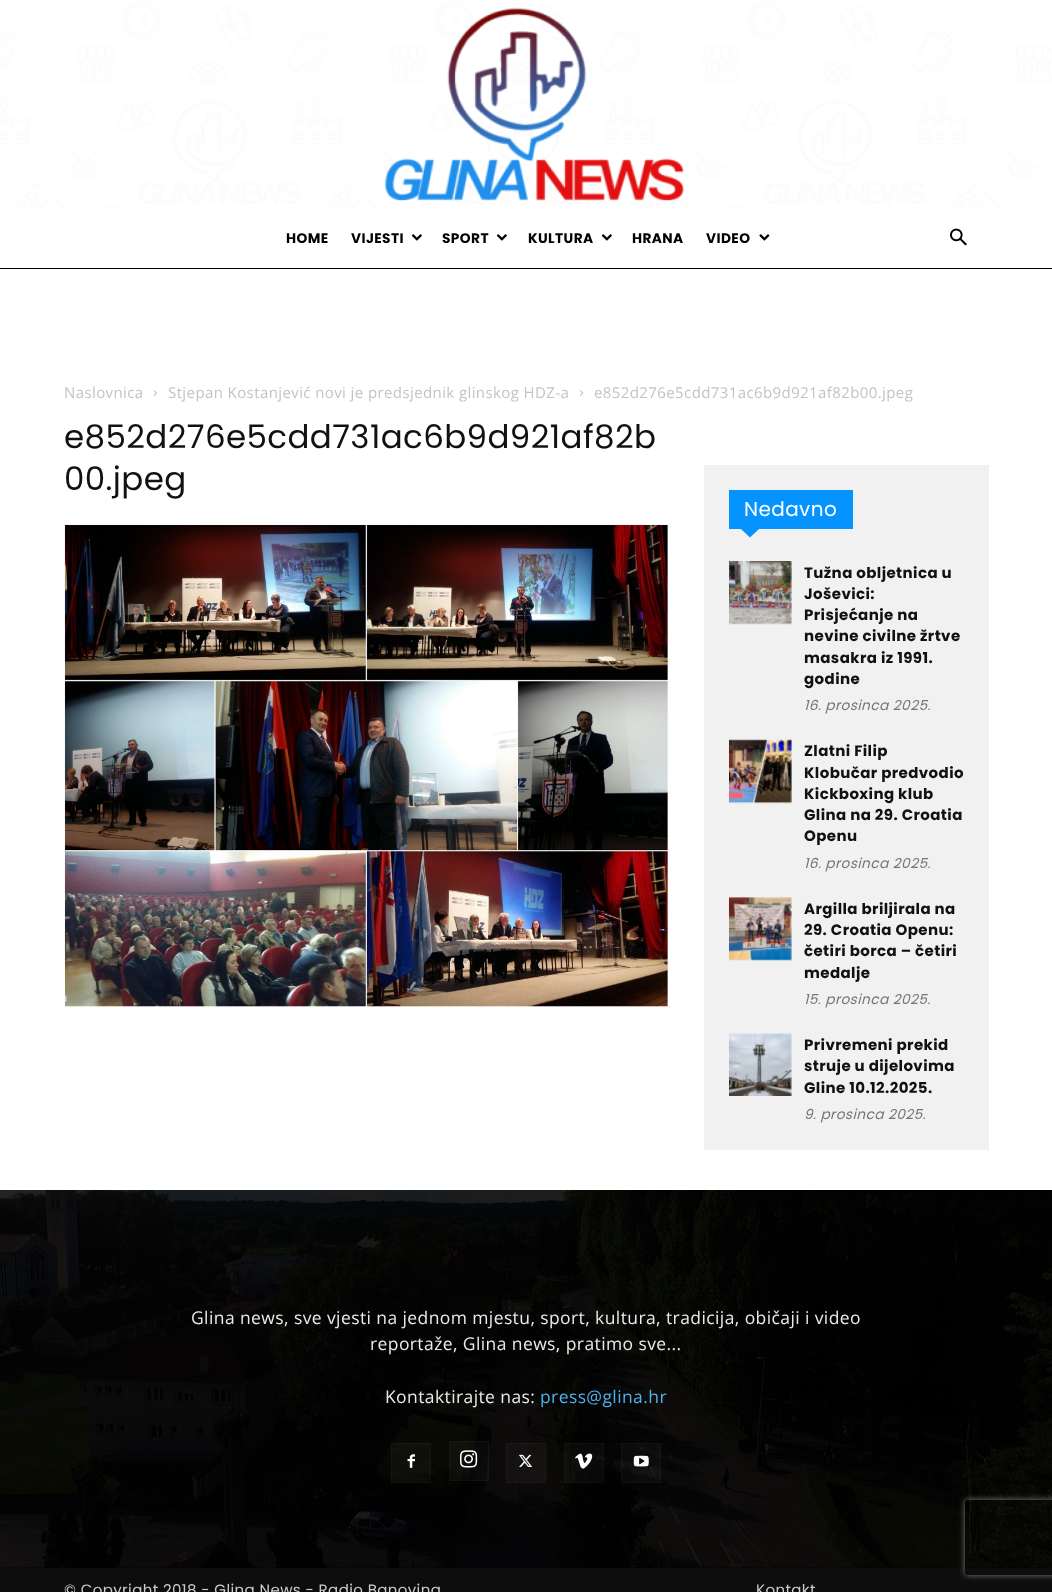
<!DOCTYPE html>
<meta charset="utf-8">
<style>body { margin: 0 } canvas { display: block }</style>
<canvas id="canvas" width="1052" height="1592"></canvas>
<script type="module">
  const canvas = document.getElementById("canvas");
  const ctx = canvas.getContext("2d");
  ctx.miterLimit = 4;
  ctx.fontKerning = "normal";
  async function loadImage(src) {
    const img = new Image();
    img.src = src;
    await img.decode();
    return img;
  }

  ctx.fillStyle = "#ffffff";
  ctx.fillRect(0, 0, 1052, 1592);
  ctx.drawImage(await loadImage("img1.png"), 0, 1, 1052, 207);
  ctx.fillStyle = "rgba(255, 255, 255, 0.68)";
  ctx.fillRect(0, 1, 1052, 207);
  ctx.drawImage(await loadImage("img2.png"), 384, 7, 300, 194);
  ctx.fillStyle = "#000000";
  ctx.fillRect(0, 268, 1052, 1);
  ctx.letterSpacing = "0.4px";
  ctx.font = "bold 13.75px Poppins";
  ctx.fillText("HOME", 286, 243);
  ctx.fillText("VIJESTI", 351, 243);
  ctx.drawImage(await loadImage("img3.png"), 411, 234, 11, 7);
  ctx.fillText("SPORT", 442, 243);
  ctx.drawImage(await loadImage("img3.png"), 496, 234, 11, 7);
  ctx.fillText("KULTURA", 528, 243);
  ctx.drawImage(await loadImage("img3.png"), 601, 234, 11, 7);
  ctx.fillText("HRANA", 632, 243);
  ctx.fillText("VIDEO", 706, 243);
  ctx.drawImage(await loadImage("img4.png"), 759, 234, 11, 7);
  ctx.drawImage(await loadImage("img5.png"), 950, 228, 17, 18);
  ctx.font = "15px Open Sans";
  ctx.fillStyle = "#c3c3c3";
  ctx.fillText("Naslovnica", 64, 398);
  ctx.drawImage(await loadImage("img6.png"), 153, 390, 4, 6);
  ctx.fillText("Stjepan Kostanjević novi je predsjednik glinskog HDZ-a", 168, 398);
  ctx.drawImage(await loadImage("img7.png"), 580, 390, 4, 6);
  ctx.fillText("e852d276e5cdd731ac6b9d921af82b00.jpeg", 594, 398);
  ctx.font = "32.5px Poppins";
  ctx.fillStyle = "#111111";
  ctx.fillText("e852d276e5cdd731ac6b9d921af82b", 64, 448);
  ctx.fillText("00.jpeg", 64, 490);
  ctx.drawImage(await loadImage("img8.png"), 64, 523, 605, 485);
  ctx.fillStyle = "#f1f1f1";
  ctx.fillRect(704, 465, 285, 685);
  ctx.fillStyle = "#0594ff";
  ctx.fillRect(729, 490, 124, 39);
  ctx.font = "20px Poppins";
  ctx.fillStyle = "#ffffff";
  ctx.fillText("Nedavno", 744, 516);
  ctx.fillStyle = "#0594ff";
  ctx.beginPath();
  ctx.moveTo(741, 529);
  ctx.lineTo(759, 529);
  ctx.lineTo(750, 537.5);
  ctx.closePath();
  ctx.fill();
  ctx.drawImage(await loadImage("img9.png"), 729, 561, 63, 64);
  ctx.font = "bold 15px Poppins";
  ctx.fillStyle = "#111111";
  ctx.fillText("Tužna obljetnica u", 804, 578);
  ctx.fillText("Joševici:", 804, 599);
  ctx.fillText("Prisjećanje na", 804, 620);
  ctx.fillText("nevine civilne žrtve", 804, 641);
  ctx.fillText("masakra iz 1991.", 804, 663);
  ctx.fillText("godine", 804, 684);
  ctx.font = "italic 13.75px Poppins";
  ctx.fillStyle = "#767676";
  ctx.fillText("16. prosinca 2025.", 804, 710);
  ctx.drawImage(await loadImage("img10.png"), 729, 739, 63, 65);
  ctx.font = "bold 15px Poppins";
  ctx.fillStyle = "#111111";
  ctx.fillText("Zlatni Filip", 804, 756);
  ctx.fillText("Klobučar predvodio", 804, 778);
  ctx.fillText("Kickboxing klub", 804, 799);
  ctx.fillText("Glina na 29. Croatia", 804, 820);
  ctx.fillText("Openu", 804, 841);
  ctx.font = "italic 13.75px Poppins";
  ctx.fillStyle = "#767676";
  ctx.fillText("16. prosinca 2025.", 804, 868);
  ctx.drawImage(await loadImage("img11.png"), 729, 897, 63, 64);
  ctx.font = "bold 15px Poppins";
  ctx.fillStyle = "#111111";
  ctx.fillText("Argilla briljirala na", 804, 914);
  ctx.fillText("29. Croatia Openu:", 804, 935);
  ctx.fillText("četiri borca – četiri", 804, 956);
  ctx.fillText("medalje", 804, 978);
  ctx.font = "italic 13.75px Poppins";
  ctx.fillStyle = "#767676";
  ctx.fillText("15. prosinca 2025.", 804, 1004);
  ctx.drawImage(await loadImage("img12.png"), 729, 1033, 63, 63);
  ctx.font = "bold 15px Poppins";
  ctx.fillStyle = "#111111";
  ctx.fillText("Privremeni prekid", 804, 1050);
  ctx.fillText("struje u dijelovima", 804, 1071);
  ctx.fillText("Gline 10.12.2025.", 804, 1093);
  ctx.font = "italic 13.75px Poppins";
  ctx.fillStyle = "#767676";
  ctx.fillText("9. prosinca 2025.", 804, 1119);
  ctx.fillStyle = "#000000";
  ctx.fillRect(0, 1190, 1052, 378);
  ctx.drawImage(await loadImage("img13.png"), 0, 1190, 1052, 378);
  ctx.font = "17.5px Open Sans";
  ctx.fillStyle = "#eaeaea";
  ctx.fillText("Glina news, sve vjesti na jednom mjestu, sport, kultura, tradicija, običaji i video", 191, 1324);
  ctx.fillText("reportaže, Glina news, pratimo sve...", 370, 1350);
  ctx.fillText("Kontaktirajte nas:", 385, 1403);
  ctx.fillStyle = "#4db2ec";
  ctx.fillText("press@glina.hr", 540, 1403);
  ctx.fillStyle = "rgba(255, 255, 255, 0.03)";
  ctx.fillRect(391, 1443, 40, 40);
  ctx.drawImage(await loadImage("img14.png"), 407, 1454, 8, 14);
  ctx.strokeStyle = "rgba(255, 255, 255, 0.03)";
  ctx.strokeRect(391.5, 1443.5, 39, 39);
  ctx.fillRect(449, 1441, 40, 40);
  ctx.drawImage(await loadImage("img15.png"), 460, 1450, 18, 18);
  ctx.strokeRect(449.5, 1441.5, 39, 39);
  ctx.fillRect(506, 1443, 40, 40);
  ctx.drawImage(await loadImage("img16.png"), 518, 1454, 15, 13);
  ctx.strokeRect(506.5, 1443.5, 39, 39);
  ctx.fillRect(564, 1443, 40, 40);
  ctx.drawImage(await loadImage("img17.png"), 575, 1453, 18, 16);
  ctx.strokeRect(564.5, 1443.5, 39, 39);
  ctx.fillRect(621, 1443, 40, 40);
  ctx.drawImage(await loadImage("img18.png"), 633, 1455, 16, 12);
  ctx.strokeRect(621.5, 1443.5, 39, 39);
  ctx.fillStyle = "#0d0d0d";
  ctx.fillRect(0, 1568, 1052, 24);
  ctx.font = "15px Poppins";
  ctx.fillStyle = "#cccccc";
  ctx.fillText("© Copyright 2018 - Glina News - Radio Banovina", 64, 1595);
  ctx.fillText("Kontakt", 756, 1595);
  ctx.save();
  ctx.beginPath();
  ctx.moveTo(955, 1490);
  ctx.lineTo(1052, 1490);
  ctx.lineTo(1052, 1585);
  ctx.lineTo(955, 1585);
  ctx.closePath();
  ctx.moveTo(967.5, 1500);
  ctx.lineTo(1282.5, 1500);
  ctx.bezierCurveTo(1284, 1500, 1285, 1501, 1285, 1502.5);
  ctx.lineTo(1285, 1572.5);
  ctx.bezierCurveTo(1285, 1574, 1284, 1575, 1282.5, 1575);
  ctx.lineTo(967.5, 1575);
  ctx.bezierCurveTo(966, 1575, 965, 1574, 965, 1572.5);
  ctx.lineTo(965, 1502.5);
  ctx.bezierCurveTo(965, 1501, 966, 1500, 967.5, 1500);
  ctx.closePath();
  ctx.clip("evenodd");
  ctx.fillStyle = "#808080";
  ctx.filter = "blur(3px)";
  ctx.beginPath();
  ctx.roundRect(965, 1500, 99, 75, 2.5);
  ctx.fill();
  ctx.filter = "none";
  ctx.restore();
</script>
